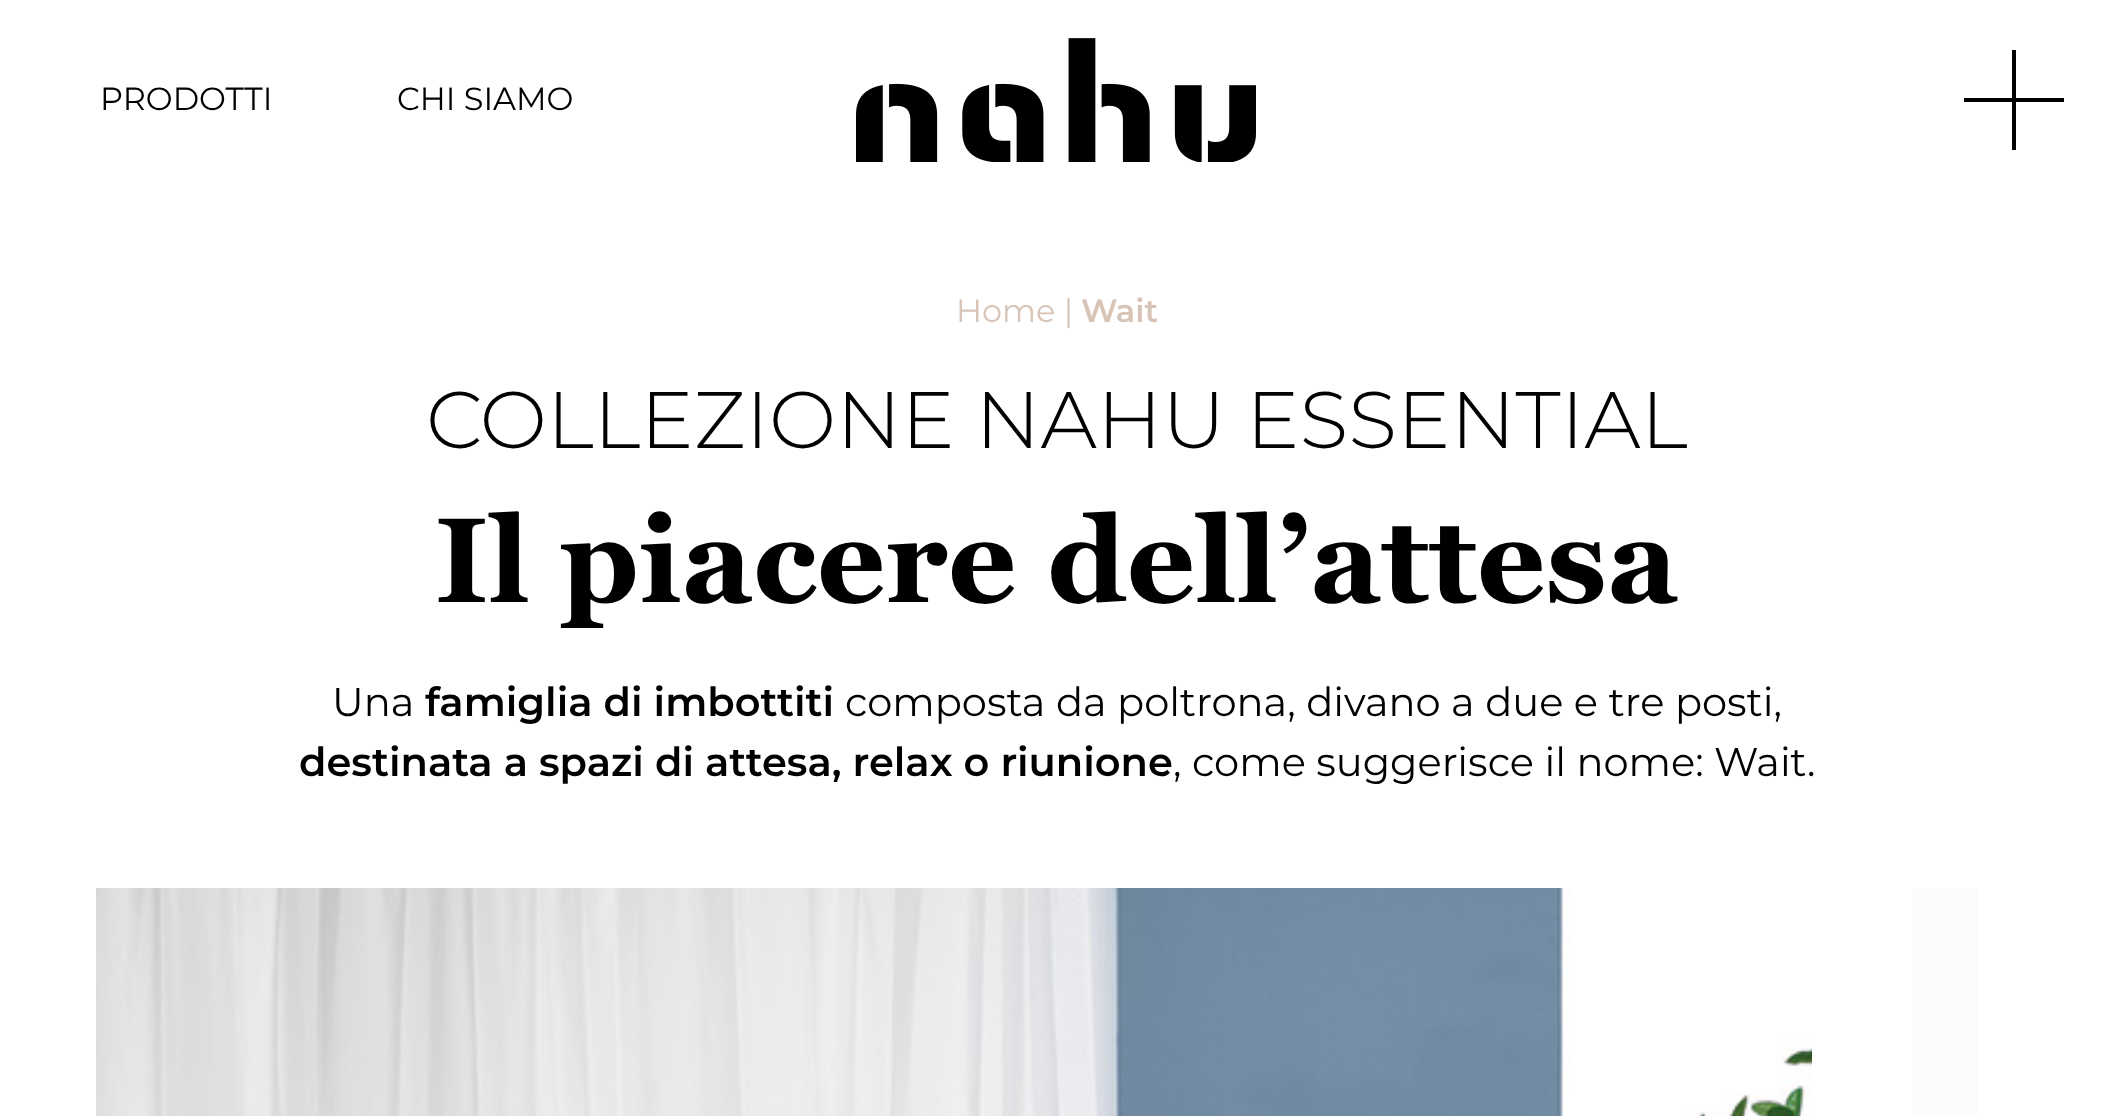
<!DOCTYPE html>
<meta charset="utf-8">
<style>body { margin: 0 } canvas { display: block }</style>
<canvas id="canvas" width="2114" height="1116"></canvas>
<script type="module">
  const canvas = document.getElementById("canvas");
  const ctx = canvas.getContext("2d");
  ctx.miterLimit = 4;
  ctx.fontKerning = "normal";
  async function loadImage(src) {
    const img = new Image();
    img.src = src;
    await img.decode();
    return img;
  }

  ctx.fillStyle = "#ffffff";
  ctx.fillRect(0, 0, 2114, 1116);
  ctx.font = "32px Montserrat";
  ctx.fillStyle = "#000000";
  ctx.fillText("PRODOTTI", 100, 110);
  ctx.fillText("CHI SIAMO", 397, 110);
  ctx.drawImage(await loadImage("img1.png"), 856, 38, 400, 124);
  ctx.fillRect(1964, 98, 100, 4);
  ctx.fillRect(2012, 50, 4, 100);
  ctx.fillStyle = "#d7c4b7";
  ctx.fillText("Home |", 956, 322);
  ctx.font = "600 32px Montserrat";
  ctx.fillText("Wait", 1081, 322);
  ctx.font = "300 80px Montserrat";
  ctx.fillStyle = "#000000";
  ctx.fillText("COLLEZIONE NAHU ESSENTIAL", 426, 448);
  ctx.font = "bold 120px Georgia";
  ctx.fillText("Il piacere dell’attesa", 435, 602);
  ctx.font = "40px Montserrat";
  ctx.fillText("Una", 332, 716);
  ctx.font = "600 40px Montserrat";
  ctx.fillText("famiglia di imbottiti", 425, 716);
  ctx.font = "40px Montserrat";
  ctx.fillText("composta da poltrona, divano a due e tre posti,", 845, 716);
  ctx.font = "600 40px Montserrat";
  ctx.fillText("destinata a spazi di attesa, relax o riunione", 299, 776);
  ctx.font = "40px Montserrat";
  ctx.fillText(", come suggerisce il nome: Wait.", 1173, 776);
  ctx.drawImage(await loadImage("img2.png"), 96, 888, 1716, 228);
  ctx.fillStyle = "#fafbfd";
  ctx.fillRect(1912, 888, 66, 228);
</script>
